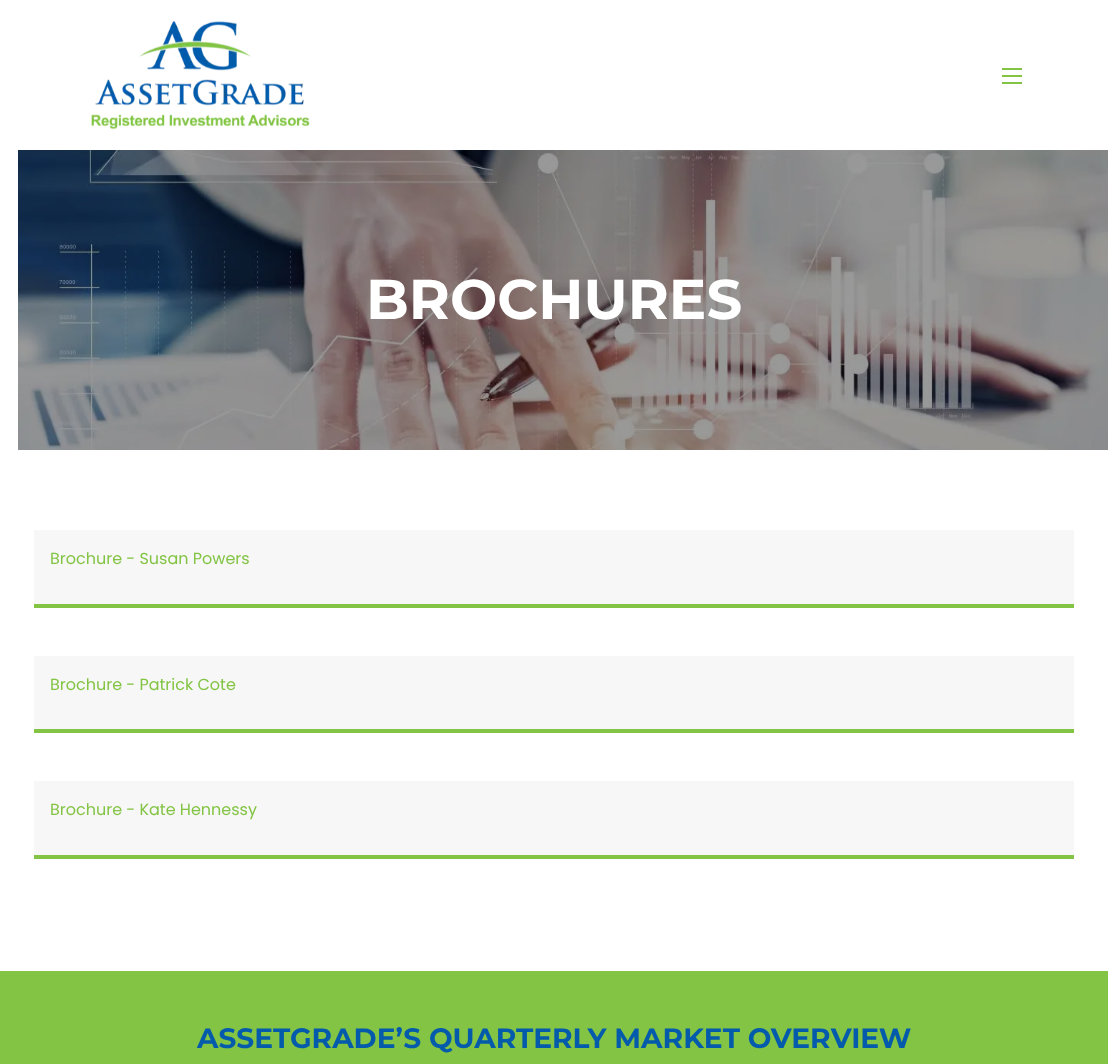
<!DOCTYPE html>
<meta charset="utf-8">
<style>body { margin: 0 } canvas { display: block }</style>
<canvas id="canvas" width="1108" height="1064"></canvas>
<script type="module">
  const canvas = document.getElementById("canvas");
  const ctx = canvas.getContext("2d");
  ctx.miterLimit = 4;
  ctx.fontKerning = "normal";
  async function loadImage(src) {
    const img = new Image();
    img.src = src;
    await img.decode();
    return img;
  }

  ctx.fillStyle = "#ffffff";
  ctx.fillRect(0, 0, 1108, 1064);
  ctx.drawImage(await loadImage("img1.png"), 91, 20, 219, 110);
  ctx.fillStyle = "#83c444";
  ctx.fillRect(1002, 82, 20, 2);
  ctx.fillRect(1002, 75, 20, 2);
  ctx.fillRect(1002, 68, 20, 2);
  ctx.drawImage(await loadImage("img2.png"), 18, 150, 1090, 300);
  ctx.font = "100 56px Montserrat";
  ctx.fillStyle = "#ffffff";
  ctx.fillText("BROCHURES", 366, 319);
  ctx.fillStyle = "#f7f7f7";
  ctx.fillRect(34, 530, 1040, 74);
  ctx.fillStyle = "#83c444";
  ctx.fillRect(34, 604, 1040, 4);
  ctx.font = "16px Poppins";
  ctx.fillText("Brochure - Susan Powers", 50, 564);
  ctx.fillStyle = "#f7f7f7";
  ctx.fillRect(34, 656, 1040, 73);
  ctx.fillStyle = "#83c444";
  ctx.fillRect(34, 729, 1040, 4);
  ctx.fillText("Brochure - Patrick Cote", 50, 690);
  ctx.fillStyle = "#f7f7f7";
  ctx.fillRect(34, 781, 1040, 74);
  ctx.fillStyle = "#83c444";
  ctx.fillRect(34, 855, 1040, 4);
  ctx.fillText("Brochure - Kate Hennessy", 50, 815);
  ctx.fillRect(0, 971, 1108, 93);
  ctx.font = "100 28px Montserrat";
  ctx.fillStyle = "#045bac";
  ctx.fillText("ASSETGRADE’S QUARTERLY MARKET OVERVIEW", 197, 1048);
</script>
